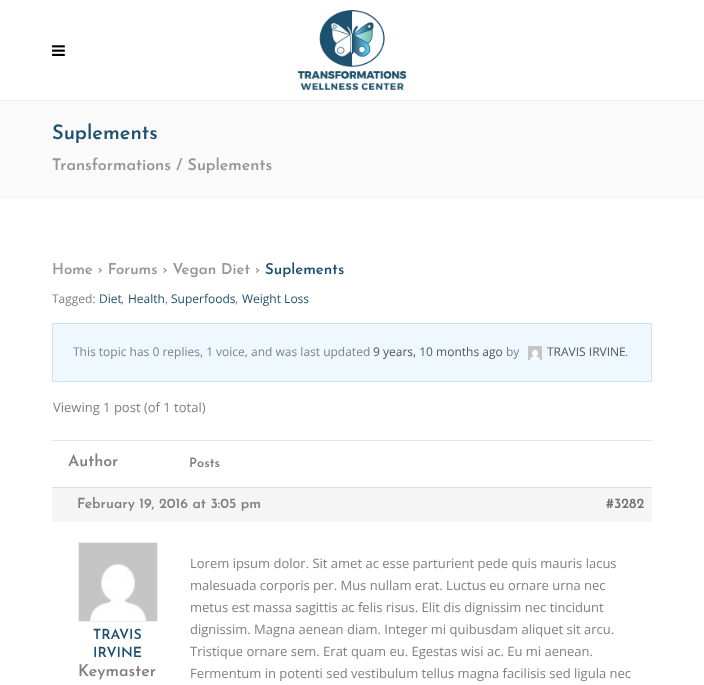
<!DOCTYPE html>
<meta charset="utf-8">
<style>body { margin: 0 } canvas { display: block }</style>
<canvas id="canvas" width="704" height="685"></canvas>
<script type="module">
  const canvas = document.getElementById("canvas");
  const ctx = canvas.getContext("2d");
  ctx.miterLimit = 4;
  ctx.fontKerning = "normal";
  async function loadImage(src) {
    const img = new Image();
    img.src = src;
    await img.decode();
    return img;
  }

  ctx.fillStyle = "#ffffff";
  ctx.fillRect(0, 0, 704, 685);
  ctx.fillStyle = "#f2f2f2";
  ctx.fillRect(0, 100, 704, 1);
  ctx.drawImage(await loadImage("img1.png"), 52, 45, 13, 11);
  ctx.drawImage(await loadImage("img2.png"), 298, 10, 108, 80);
  ctx.fillStyle = "#fafafa";
  ctx.fillRect(0, 101, 704, 96);
  ctx.fillStyle = "#f2f2f2";
  ctx.fillRect(0, 197, 704, 1);
  ctx.font = "600 20px Josefin Sans";
  ctx.fillStyle = "#1d506f";
  ctx.fillText("Suplements", 52, 139);
  ctx.font = "600 16px Josefin Sans";
  ctx.fillStyle = "#969696";
  ctx.fillText("Transformations / Suplements", 52, 170);
  ctx.font = "600 15px Josefin Sans";
  ctx.fillText("Home › Forums › Vegan Diet ›", 52, 274);
  ctx.fillStyle = "#1d506f";
  ctx.fillText("Suplements", 265, 274);
  ctx.font = "12px Open Sans";
  ctx.fillStyle = "#808080";
  ctx.fillText("Tagged:", 52, 303);
  ctx.fillStyle = "#1d506f";
  ctx.fillText("Diet", 99, 303);
  ctx.fillStyle = "#808080";
  ctx.fillText(",", 121, 303);
  ctx.fillStyle = "#1d506f";
  ctx.fillText("Health", 128, 303);
  ctx.fillStyle = "#808080";
  ctx.fillText(",", 165, 303);
  ctx.fillStyle = "#1d506f";
  ctx.fillText("Superfoods", 171, 303);
  ctx.fillStyle = "#808080";
  ctx.fillText(",", 235, 303);
  ctx.fillStyle = "#1d506f";
  ctx.fillText("Weight Loss", 242, 303);
  ctx.fillStyle = "#f0f8ff";
  ctx.beginPath();
  ctx.rect(52.5, 323.5, 599, 58);
  ctx.fill();
  ctx.strokeStyle = "#cee1ef";
  ctx.stroke();
  ctx.fillStyle = "#808080";
  ctx.fillText("This topic has 0 replies, 1 voice, and was last updated", 73, 356);
  ctx.fillStyle = "#555555";
  ctx.fillText("9 years, 10 months ago", 373, 356);
  ctx.fillStyle = "#808080";
  ctx.fillText("by", 506, 356);
  ctx.drawImage(await loadImage("img3.png"), 528, 346, 14, 14);
  ctx.fillStyle = "#555555";
  ctx.fillText("TRAVIS IRVINE", 547, 356);
  ctx.fillStyle = "#808080";
  ctx.fillText(".", 625, 356);
  ctx.font = "13px Open Sans";
  ctx.fillText("Viewing 1 post (of 1 total)", 53, 412);
  ctx.fillStyle = "#e5e5e5";
  ctx.fillRect(52, 440, 600, 1);
  ctx.font = "600 16px Josefin Sans";
  ctx.fillStyle = "#808080";
  ctx.fillText("Author", 68, 466);
  ctx.font = "600 13px Josefin Sans";
  ctx.fillText("Posts", 189, 467);
  ctx.fillStyle = "#f5f5f5";
  ctx.fillRect(52, 488, 600, 34);
  ctx.fillStyle = "#dddddd";
  ctx.fillRect(52, 487, 600, 1);
  ctx.font = "600 14px Josefin Sans";
  ctx.fillStyle = "#808080";
  ctx.fillText("February 19, 2016 at 3:05 pm", 77, 508);
  ctx.fillStyle = "#707070";
  ctx.fillText("#3282", 606, 508);
  ctx.strokeStyle = "#eeeeee";
  ctx.strokeRect(78.5, 542.5, 79, 79);
  ctx.drawImage(await loadImage("img4.png"), 79, 543, 78, 78);
  ctx.fillStyle = "#1d506f";
  ctx.fillText("TRAVIS", 93, 639);
  ctx.fillText("IRVINE", 93, 657);
  ctx.font = "600 16px Josefin Sans";
  ctx.fillStyle = "#808080";
  ctx.fillText("Keymaster", 78, 676);
  ctx.font = "13px Open Sans";
  ctx.fillText("Lorem ipsum dolor. Sit amet ac esse parturient pede quis mauris lacus", 190, 568);
  ctx.fillText("malesuada corporis per. Mus nullam erat. Luctus eu ornare urna nec", 190, 590);
  ctx.fillText("metus est massa sagittis ac felis risus. Elit dis dignissim nec tincidunt", 190, 612);
  ctx.fillText("dignissim. Magna aenean diam. Integer mi quibusdam aliquet sit arcu.", 190, 634);
  ctx.fillText("Tristique ornare sem. Erat quam eu. Egestas wisi ac. Eu mi aenean.", 190, 656);
  ctx.fillText("Fermentum in potenti sed vestibulum tellus magna facilisis sed ligula nec", 190, 678);
</script>
